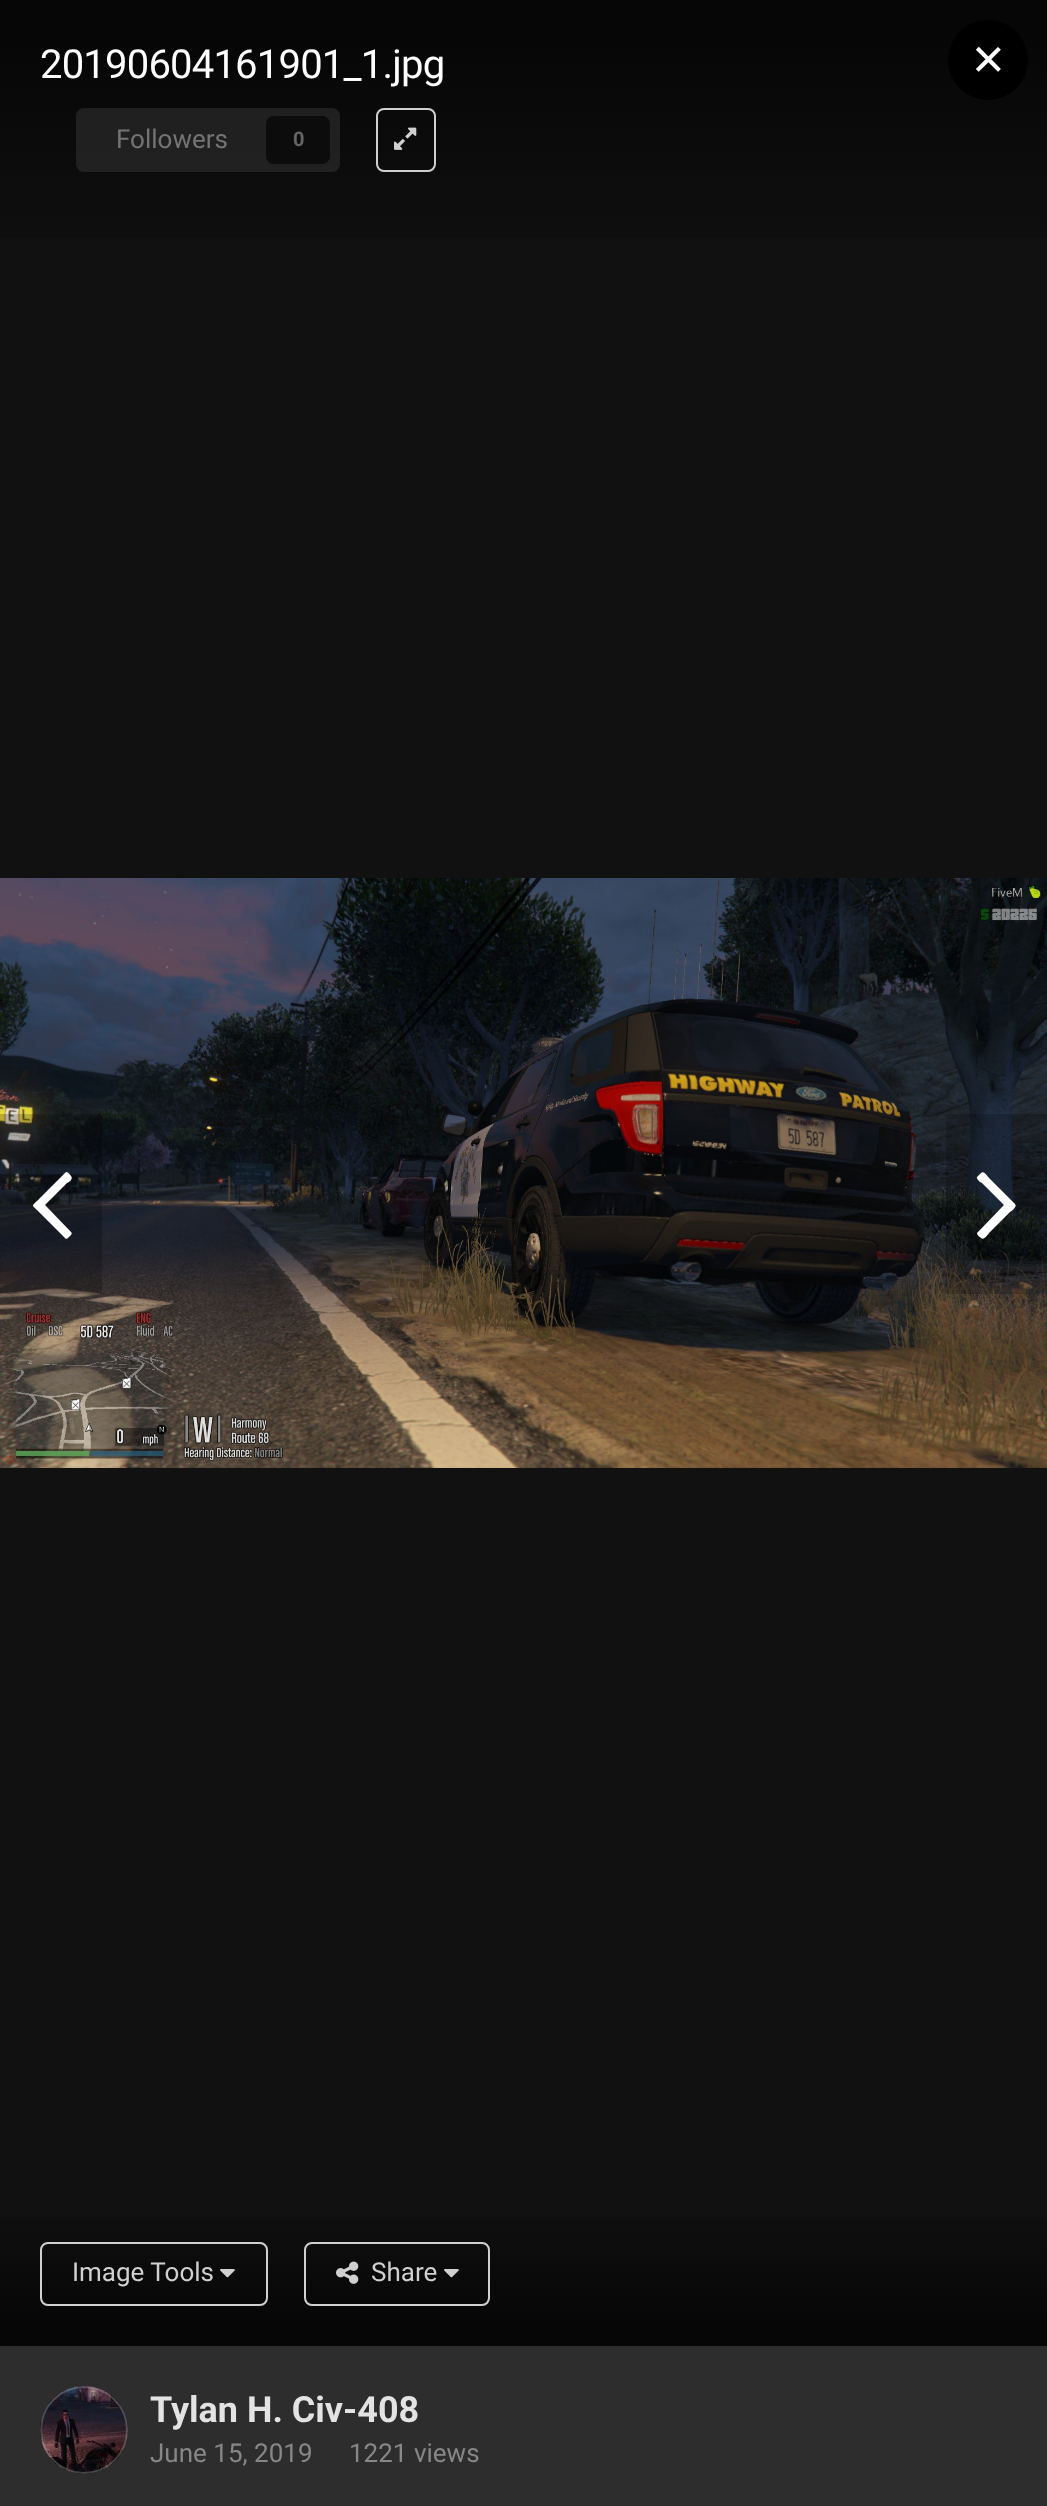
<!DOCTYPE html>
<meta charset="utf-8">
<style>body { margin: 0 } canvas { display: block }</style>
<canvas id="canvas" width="1047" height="2506"></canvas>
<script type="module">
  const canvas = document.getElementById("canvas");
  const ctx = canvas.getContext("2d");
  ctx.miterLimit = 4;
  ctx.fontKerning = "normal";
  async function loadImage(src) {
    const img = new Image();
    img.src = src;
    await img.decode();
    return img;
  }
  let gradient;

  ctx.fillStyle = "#111111";
  ctx.fillRect(0, 0, 1047, 2506);
  gradient = ctx.createLinearGradient(524, 0, 524, 300);
  gradient.addColorStop(0, "#050505");
  gradient.addColorStop(1, "#111111");
  ctx.fillStyle = gradient;
  ctx.fillRect(0, 0, 1047, 238);
  ctx.letterSpacing = "-0.8px";
  ctx.font = "40px Roboto";
  ctx.fillStyle = "#ffffff";
  ctx.fillText("20190604161901_1.jpg", 40, 78);
  ctx.fillStyle = "rgba(53, 53, 53, 0.5)";
  ctx.beginPath();
  ctx.roundRect(76, 108, 264, 64, 8);
  ctx.fill();
  ctx.letterSpacing = "0px";
  ctx.font = "26px Roboto";
  ctx.fillStyle = "#747474";
  ctx.fillText("Followers", 116, 148);
  ctx.fillStyle = "#0c0c0c";
  ctx.beginPath();
  ctx.roundRect(266, 116, 64, 48, 8);
  ctx.fill();
  ctx.font = "bold 20px Roboto";
  ctx.fillStyle = "#656565";
  ctx.fillText("0", 293, 146);
  ctx.beginPath();
  ctx.roundRect(377, 109, 58, 62, 7);
  ctx.strokeStyle = "#d0d0d0";
  ctx.lineWidth = 2;
  ctx.stroke();
  ctx.drawImage(await loadImage("img1.png"), 394, 127, 23, 23);
  gradient = ctx.createLinearGradient(524, 2186, 524, 2346);
  gradient.addColorStop(0, "#111111");
  gradient.addColorStop(1, "#050505");
  ctx.fillStyle = gradient;
  ctx.fillRect(0, 2219, 1047, 127);
  ctx.beginPath();
  ctx.roundRect(41, 2243, 226, 62, 7);
  ctx.stroke();
  ctx.font = "26px Roboto";
  ctx.fillStyle = "#d0d0d0";
  ctx.fillText("Image Tools", 72, 2281);
  ctx.drawImage(await loadImage("img2.png"), 220, 2269, 15, 9);
  ctx.beginPath();
  ctx.roundRect(305, 2243, 184, 62, 7);
  ctx.stroke();
  ctx.drawImage(await loadImage("img3.png"), 336, 2261, 23, 23);
  ctx.fillText("Share", 371, 2281);
  ctx.drawImage(await loadImage("img2.png"), 444, 2269, 15, 9);
  ctx.drawImage(await loadImage("img4.png"), 0, 878, 1047, 590);
  ctx.fillStyle = "rgba(0, 0, 0, 0.2)";
  ctx.fillRect(0, 1114, 102, 180);
  ctx.fillStyle = "#ffffff";
  ctx.beginPath();
  ctx.moveTo(71, 1176);
  ctx.bezierCurveTo(74, 1179, 68, 1183, 67, 1183);
  ctx.lineTo(45, 1205);
  ctx.lineTo(71, 1232);
  ctx.bezierCurveTo(73, 1234, 70, 1236, 69, 1237);
  ctx.bezierCurveTo(68, 1238, 66, 1240, 65, 1238);
  ctx.lineTo(39, 1212);
  ctx.bezierCurveTo(31, 1204, 31, 1207, 39, 1199);
  ctx.lineTo(65, 1173);
  ctx.bezierCurveTo(67, 1170, 70, 1175, 71, 1176);
  ctx.closePath();
  ctx.fill();
  ctx.fillStyle = "rgba(0, 0, 0, 0.2)";
  ctx.fillRect(946, 1114, 101, 180);
  ctx.fillStyle = "#ffffff";
  ctx.beginPath();
  ctx.moveTo(1015, 1204);
  ctx.bezierCurveTo(1018, 1207, 1010, 1212, 1010, 1212);
  ctx.lineTo(989, 1233);
  ctx.bezierCurveTo(989, 1233, 984, 1241, 981, 1238);
  ctx.bezierCurveTo(980, 1237, 975, 1234, 978, 1232);
  ctx.lineTo(1004, 1205);
  ctx.lineTo(982, 1183);
  ctx.bezierCurveTo(981, 1183, 976, 1179, 977, 1177);
  ctx.lineTo(980, 1174);
  ctx.bezierCurveTo(984, 1170, 985, 1174, 989, 1178);
  ctx.closePath();
  ctx.fill();
  ctx.fillStyle = "#2d2d2d";
  ctx.fillRect(0, 2346, 1047, 160);
  ctx.fillStyle = "#0d0d0d";
  ctx.beginPath();
  ctx.arc(84, 2430, 44, 0, Math.PI * 2);
  ctx.fill();
  ctx.drawImage(await loadImage("img5.png"), 40, 2386, 88, 88);
  ctx.beginPath();
  ctx.arc(84, 2430, 43, 0, Math.PI * 2);
  ctx.strokeStyle = "rgba(191, 191, 191, 0.3)";
  ctx.stroke();
  ctx.font = "bold 36px Roboto";
  ctx.fillStyle = "#e3e3e3";
  ctx.fillText("Tylan H. Civ-408", 150, 2422);
  ctx.font = "26px Roboto";
  ctx.fillStyle = "#878787";
  ctx.fillText("June 15, 2019", 150, 2462);
  ctx.fillText("1221 views", 349, 2462);
  ctx.fillStyle = "#000000";
  ctx.beginPath();
  ctx.arc(988, 60, 40, 0, Math.PI * 2);
  ctx.fill();
  ctx.font = "56px Liberation Sans";
  ctx.fillStyle = "#ffffff";
  ctx.fillText("×", 972, 78);
</script>
